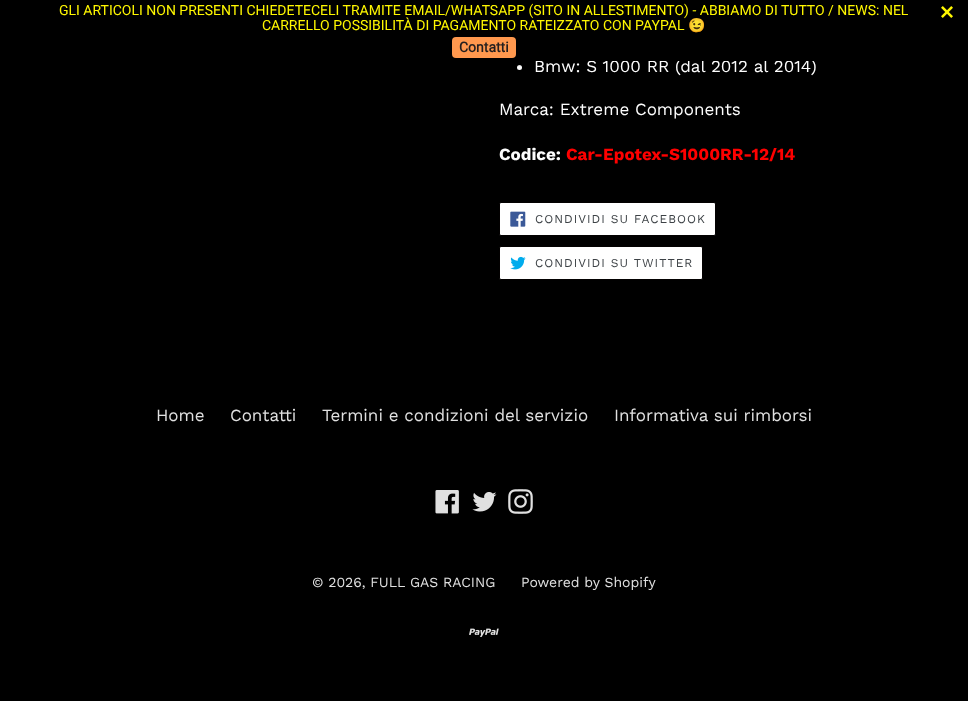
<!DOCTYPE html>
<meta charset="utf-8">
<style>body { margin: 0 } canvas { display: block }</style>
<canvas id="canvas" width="968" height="701"></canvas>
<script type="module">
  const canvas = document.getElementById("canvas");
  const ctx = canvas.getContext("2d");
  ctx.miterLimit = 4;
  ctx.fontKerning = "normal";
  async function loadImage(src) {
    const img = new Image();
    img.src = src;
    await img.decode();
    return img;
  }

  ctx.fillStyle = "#000000";
  ctx.fillRect(0, 0, 968, 701);
  ctx.fillStyle = "#fdfdfd";
  ctx.beginPath();
  ctx.arc(519.5, 67.5, 2.5, 0, Math.PI * 2);
  ctx.fill();
  ctx.fillStyle = "rgba(0, 0, 0, 0.3)";
  ctx.filter = "blur(1px)";
  ctx.beginPath();
  ctx.rect(-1, 2, 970, 63);
  ctx.fill();
  ctx.filter = "none";
  ctx.font = "17px Work Sans";
  ctx.fillStyle = "#fdfdfd";
  ctx.fillText("Bmw: S 1000 RR (dal 2012 al 2014)", 534, 72);
  ctx.fillStyle = "#000000";
  ctx.fillRect(535, 59, 279, 2);
  ctx.font = "14px Roboto";
  ctx.fillStyle = "#fff700";
  ctx.fillText("GLI ARTICOLI NON PRESENTI CHIEDETECELI TRAMITE EMAIL/WHATSAPP (SITO IN ALLESTIMENTO) - ABBIAMO DI TUTTO / NEWS: NEL", 59, 15);
  ctx.fillText("CARRELLO POSSIBILITÀ DI PAGAMENTO RATEIZZATO CON PAYPAL", 262, 30);
  ctx.font = "14px Noto Color Emoji";
  ctx.fillText("😉", 688, 30);
  ctx.fillStyle = "#ff984e";
  ctx.beginPath();
  ctx.roundRect(452, 37, 64, 21, 4);
  ctx.fill();
  ctx.font = "bold 14px Roboto";
  ctx.fillStyle = "#231f1f";
  ctx.fillText("Contatti", 459, 52);
  ctx.drawImage(await loadImage("img1.png"), 941, 6, 12, 12);
  ctx.font = "17px Work Sans";
  ctx.fillStyle = "#fdfdfd";
  ctx.fillText("Marca: Extreme Components", 499, 115);
  ctx.font = "bold 17px Work Sans";
  ctx.fillText("Codice:", 499, 160);
  ctx.fillStyle = "#ff0000";
  ctx.fillText("Car-Epotex-S1000RR-12/14", 566, 160);
  ctx.fillStyle = "#ffffff";
  ctx.beginPath();
  ctx.roundRect(499.5, 202.5, 216, 33, 1.5);
  ctx.fill();
  ctx.strokeStyle = "#030101";
  ctx.stroke();
  ctx.drawImage(await loadImage("img2.png"), 510, 211, 16, 16);
  ctx.letterSpacing = "1px";
  ctx.font = "12px Work Sans";
  ctx.fillStyle = "#3d4246";
  ctx.fillText("CONDIVIDI SU FACEBOOK", 535, 223);
  ctx.fillStyle = "#ffffff";
  ctx.beginPath();
  ctx.roundRect(499.5, 246.5, 203, 33, 1.5);
  ctx.fill();
  ctx.stroke();
  ctx.drawImage(await loadImage("img3.png"), 510, 256, 16, 14);
  ctx.fillStyle = "#3d4246";
  ctx.fillText("CONDIVIDI SU TWITTER", 535, 267);
  ctx.letterSpacing = "0px";
  ctx.font = "17px Work Sans";
  ctx.fillStyle = "#e0e0e0";
  ctx.fillText("Home", 156, 421);
  ctx.fillText("Contatti", 230, 421);
  ctx.fillText("Termini e condizioni del servizio", 322, 421);
  ctx.fillText("Informativa sui rimborsi", 614, 421);
  ctx.drawImage(await loadImage("img4.png"), 435, 490, 24, 24);
  ctx.drawImage(await loadImage("img5.png"), 472, 492, 25, 20);
  ctx.drawImage(await loadImage("img6.png"), 508, 489, 25, 25);
  ctx.font = "14px Work Sans";
  ctx.fillText("© 2026, FULL GAS RACING", 312, 587);
  ctx.fillText("Powered by Shopify", 521, 587);
  ctx.drawImage(await loadImage("img7.png"), 469, 628, 30, 9);
</script>
